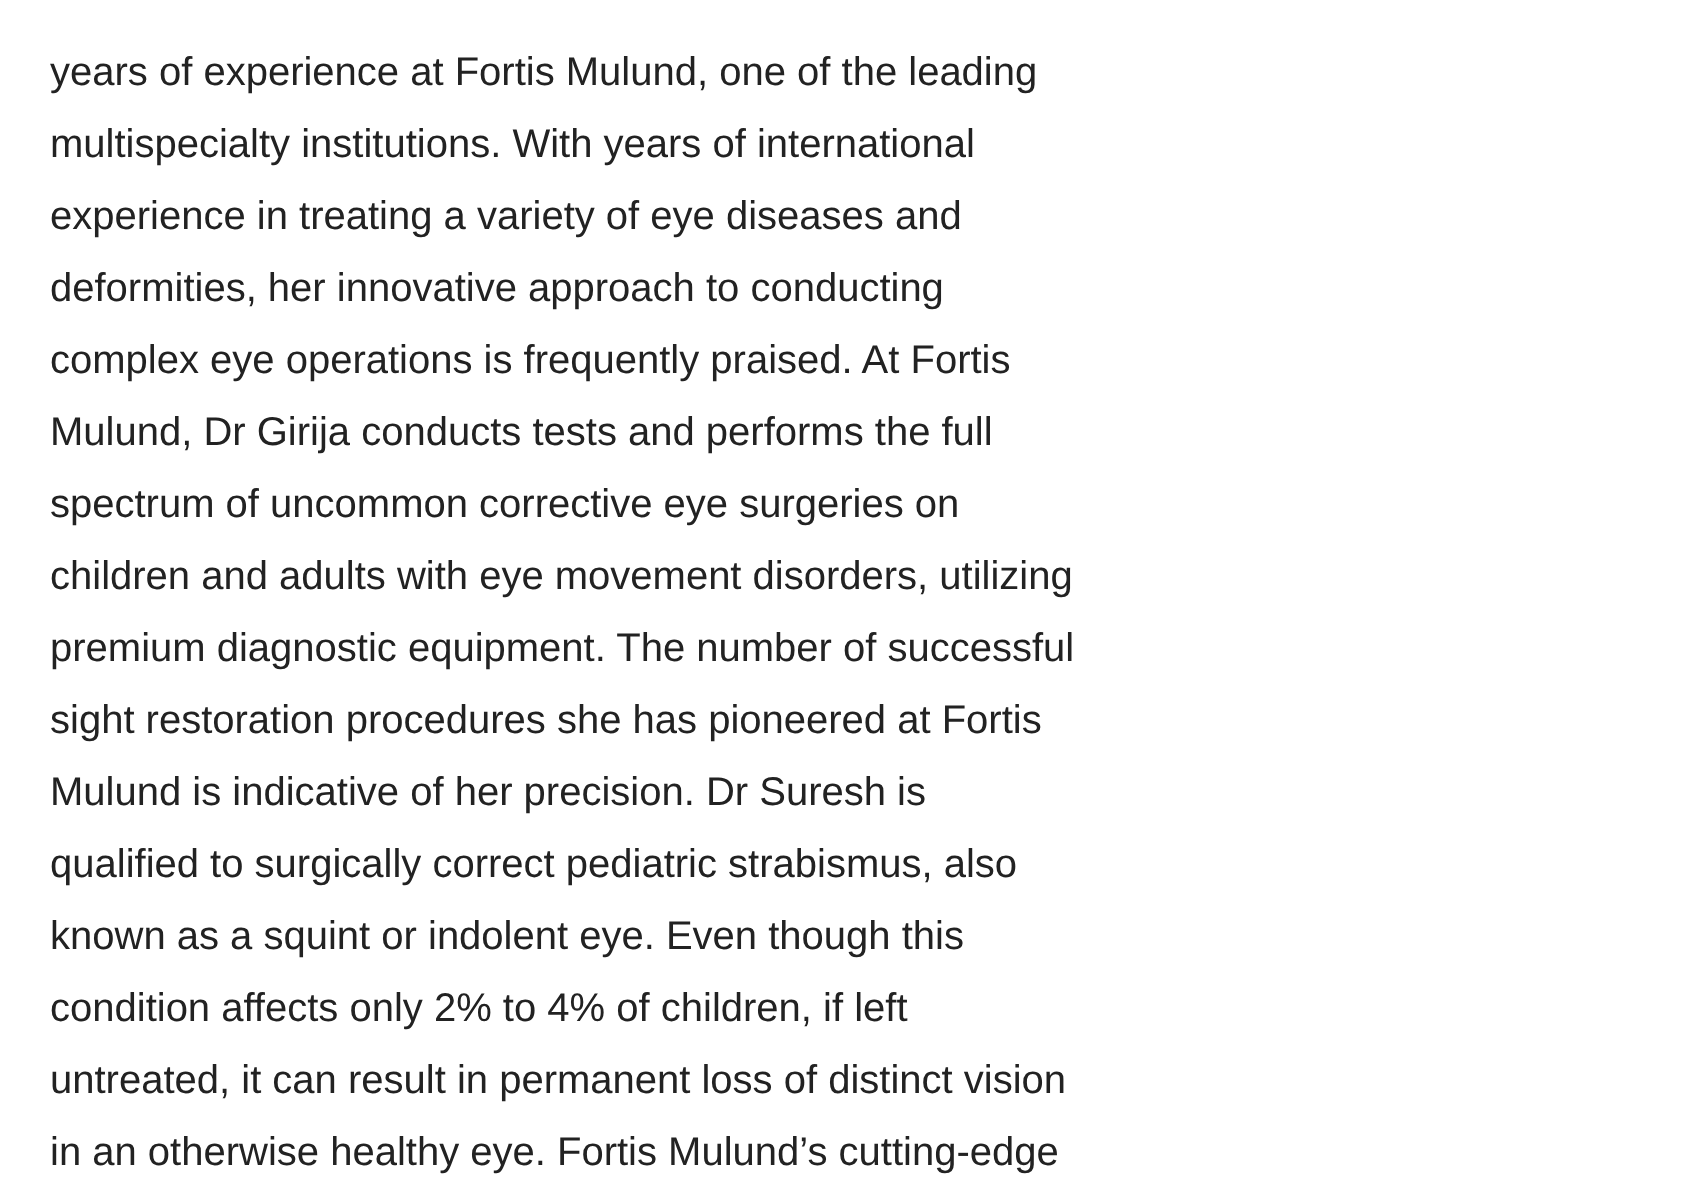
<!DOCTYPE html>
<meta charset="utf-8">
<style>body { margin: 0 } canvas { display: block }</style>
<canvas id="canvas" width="1683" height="1183"></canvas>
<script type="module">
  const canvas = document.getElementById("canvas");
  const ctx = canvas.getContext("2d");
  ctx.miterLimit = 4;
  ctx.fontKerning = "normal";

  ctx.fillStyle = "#ffffff";
  ctx.fillRect(0, 0, 1683, 1183);
  ctx.font = "40px Liberation Sans";
  ctx.fillStyle = "#222222";
  ctx.fillText("years of experience at Fortis Mulund, one of the leading", 50, 85);
  ctx.fillText("multispecialty institutions. With years of international", 50, 157);
  ctx.fillText("experience in treating a variety of eye diseases and", 50, 229);
  ctx.fillText("deformities, her innovative approach to conducting", 50, 301);
  ctx.fillText("complex eye operations is frequently praised. At Fortis", 50, 373);
  ctx.fillText("Mulund, Dr Girija conducts tests and performs the full", 50, 445);
  ctx.fillText("spectrum of uncommon corrective eye surgeries on", 50, 517);
  ctx.fillText("children and adults with eye movement disorders, utilizing", 50, 589);
  ctx.fillText("premium diagnostic equipment. The number of successful", 50, 661);
  ctx.fillText("sight restoration procedures she has pioneered at Fortis", 50, 733);
  ctx.fillText("Mulund is indicative of her precision. Dr Suresh is", 50, 805);
  ctx.fillText("qualified to surgically correct pediatric strabismus, also", 50, 877);
  ctx.fillText("known as a squint or indolent eye. Even though this", 50, 949);
  ctx.fillText("condition affects only 2% to 4% of children, if left", 50, 1021);
  ctx.fillText("untreated, it can result in permanent loss of distinct vision", 50, 1093);
  ctx.fillText("in an otherwise healthy eye. Fortis Mulund’s cutting-edge", 50, 1165);
</script>
